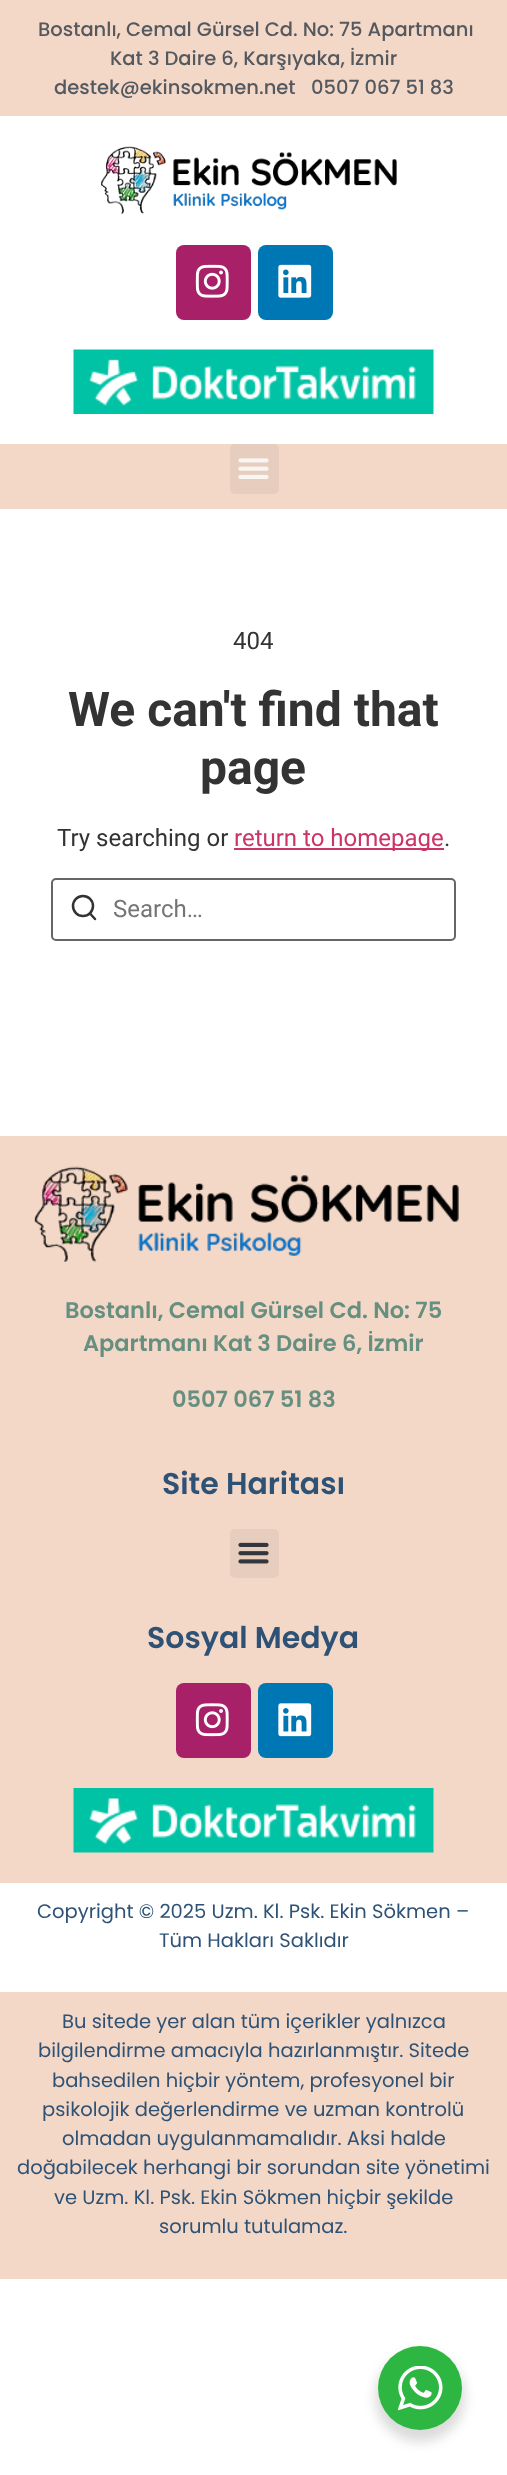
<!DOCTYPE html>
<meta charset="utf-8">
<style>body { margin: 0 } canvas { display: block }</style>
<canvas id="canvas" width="507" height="2475"></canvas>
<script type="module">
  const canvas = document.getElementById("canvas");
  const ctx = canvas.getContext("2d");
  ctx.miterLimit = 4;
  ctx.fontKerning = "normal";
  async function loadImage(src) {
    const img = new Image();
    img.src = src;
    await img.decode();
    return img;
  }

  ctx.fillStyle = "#ffffff";
  ctx.fillRect(0, 0, 507, 2475);
  ctx.fillStyle = "#f3d8c7";
  ctx.fillRect(0, 0, 507, 116);
  ctx.font = "500 19.5px Poppins";
  ctx.fillStyle = "#54595f";
  ctx.fillText("Bostanlı, Cemal Gürsel Cd. No: 75 Apartmanı", 38, 36);
  ctx.fillText("Kat 3 Daire 6, Karşıyaka, İzmir", 110, 65);
  ctx.fillText("destek@ekinsokmen.net", 54, 94);
  ctx.fillText("0507 067 51 83", 311, 94);
  ctx.drawImage(await loadImage("img1.png"), 101, 146, 296, 68);
  ctx.fillStyle = "#a72068";
  ctx.beginPath();
  ctx.roundRect(176, 245, 75, 75, 8);
  ctx.fill();
  ctx.drawImage(await loadImage("img2.png"), 195, 264, 34, 34);
  ctx.fillStyle = "#0077b5";
  ctx.beginPath();
  ctx.roundRect(258, 245, 75, 75, 8);
  ctx.fill();
  ctx.drawImage(await loadImage("img3.png"), 278, 264, 34, 34);
  ctx.drawImage(await loadImage("img4.png"), 73, 349, 361, 65);
  ctx.fillStyle = "#f3d8c7";
  ctx.fillRect(0, 444, 507, 65);
  ctx.fillStyle = "#e7cdbd";
  ctx.beginPath();
  ctx.roundRect(230, 444, 49, 50, 5);
  ctx.fill();
  ctx.drawImage(await loadImage("img5.png"), 238, 458, 31, 21);
  ctx.font = "24px Roboto";
  ctx.fillStyle = "#333333";
  ctx.fillText("404", 233, 649);
  ctx.font = "bold 48px Roboto";
  ctx.fillText("We can't find that", 68, 726);
  ctx.fillText("page", 200, 784);
  ctx.font = "24px Roboto";
  ctx.fillText("Try searching or", 57, 846);
  ctx.fillStyle = "#cc3366";
  ctx.fillRect(234, 848, 210, 2);
  ctx.fillText("return to homepage", 234, 846);
  ctx.fillStyle = "#333333";
  ctx.fillText(".", 444, 846);
  ctx.beginPath();
  ctx.roundRect(52, 879, 403, 61, 4);
  ctx.strokeStyle = "#666666";
  ctx.lineWidth = 2;
  ctx.stroke();
  ctx.beginPath();
  ctx.arc(83, 906, 10, 0, Math.PI * 2);
  ctx.strokeStyle = "#333333";
  ctx.lineWidth = 2.5;
  ctx.stroke();
  ctx.beginPath();
  ctx.moveTo(95, 919);
  ctx.lineTo(90, 913.5);
  ctx.lineCap = "round";
  ctx.lineJoin = "round";
  ctx.stroke();
  ctx.fillStyle = "#757575";
  ctx.fillText("Search…", 113, 917);
  ctx.fillStyle = "#f3d8c7";
  ctx.fillRect(0, 1136, 507, 747);
  ctx.drawImage(await loadImage("img6.png"), 34, 1166, 425, 96);
  ctx.font = "600 22.5px Poppins";
  ctx.fillStyle = "#668f80";
  ctx.fillText("Bostanlı, Cemal Gürsel Cd. No: 75", 65, 1318);
  ctx.fillText("Apartmanı Kat 3 Daire 6, İzmir", 83, 1351);
  ctx.fillText("0507 067 51 83", 172, 1407);
  ctx.font = "600 30px Poppins";
  ctx.fillStyle = "#2e5276";
  ctx.fillText("Site Haritası", 162, 1494);
  ctx.fillStyle = "#e7cdbd";
  ctx.beginPath();
  ctx.roundRect(230, 1529, 49, 49, 5);
  ctx.fill();
  ctx.drawImage(await loadImage("img7.png"), 238, 1542, 31, 22);
  ctx.fillStyle = "#2e5276";
  ctx.fillText("Sosyal Medya", 147, 1648);
  ctx.fillStyle = "#a72068";
  ctx.beginPath();
  ctx.roundRect(176, 1683, 75, 75, 8);
  ctx.fill();
  ctx.drawImage(await loadImage("img8.png"), 195, 1703, 34, 34);
  ctx.fillStyle = "#0077b5";
  ctx.beginPath();
  ctx.roundRect(258, 1683, 75, 75, 8);
  ctx.fill();
  ctx.drawImage(await loadImage("img9.png"), 278, 1703, 34, 34);
  ctx.drawImage(await loadImage("img10.png"), 73, 1788, 361, 65);
  ctx.font = "19.5px Poppins";
  ctx.fillStyle = "#2e5276";
  ctx.fillText("Copyright © 2025 Uzm. Kl. Psk. Ekin Sökmen –", 37, 1918);
  ctx.fillText("Tüm Hakları Saklıdır", 159, 1947);
  ctx.fillStyle = "#f3d8c7";
  ctx.fillRect(0, 1992, 507, 287);
  ctx.fillStyle = "#2e5276";
  ctx.fillText("Bu sitede yer alan tüm içerikler yalnızca", 62, 2028);
  ctx.fillText("bilgilendirme amacıyla hazırlanmıştır. Sitede", 38, 2057);
  ctx.fillText("bahsedilen hiçbir yöntem, profesyonel bir", 52, 2087);
  ctx.fillText("psikolojik değerlendirme ve uzman kontrolü", 42, 2116);
  ctx.fillText("olmadan uygulanmamalıdır. Aksi halde", 62, 2145);
  ctx.fillText("doğabilecek herhangi bir sorundan site yönetimi", 17, 2174);
  ctx.fillText("ve Uzm. Kl. Psk. Ekin Sökmen hiçbir şekilde", 54, 2204);
  ctx.fillText("sorumlu tutulamaz.", 159, 2233);
  ctx.fillStyle = "rgba(0, 0, 0, 0.14)";
  ctx.filter = "blur(6px)";
  ctx.beginPath();
  ctx.roundRect(375, 2352, 90, 90, 45);
  ctx.fill();
  ctx.filter = "none";
  ctx.fillStyle = "#2db742";
  ctx.beginPath();
  ctx.arc(420, 2388, 42, 0, Math.PI * 2);
  ctx.fill();
  ctx.drawImage(await loadImage("img11.png"), 398, 2366, 45, 45);
</script>
